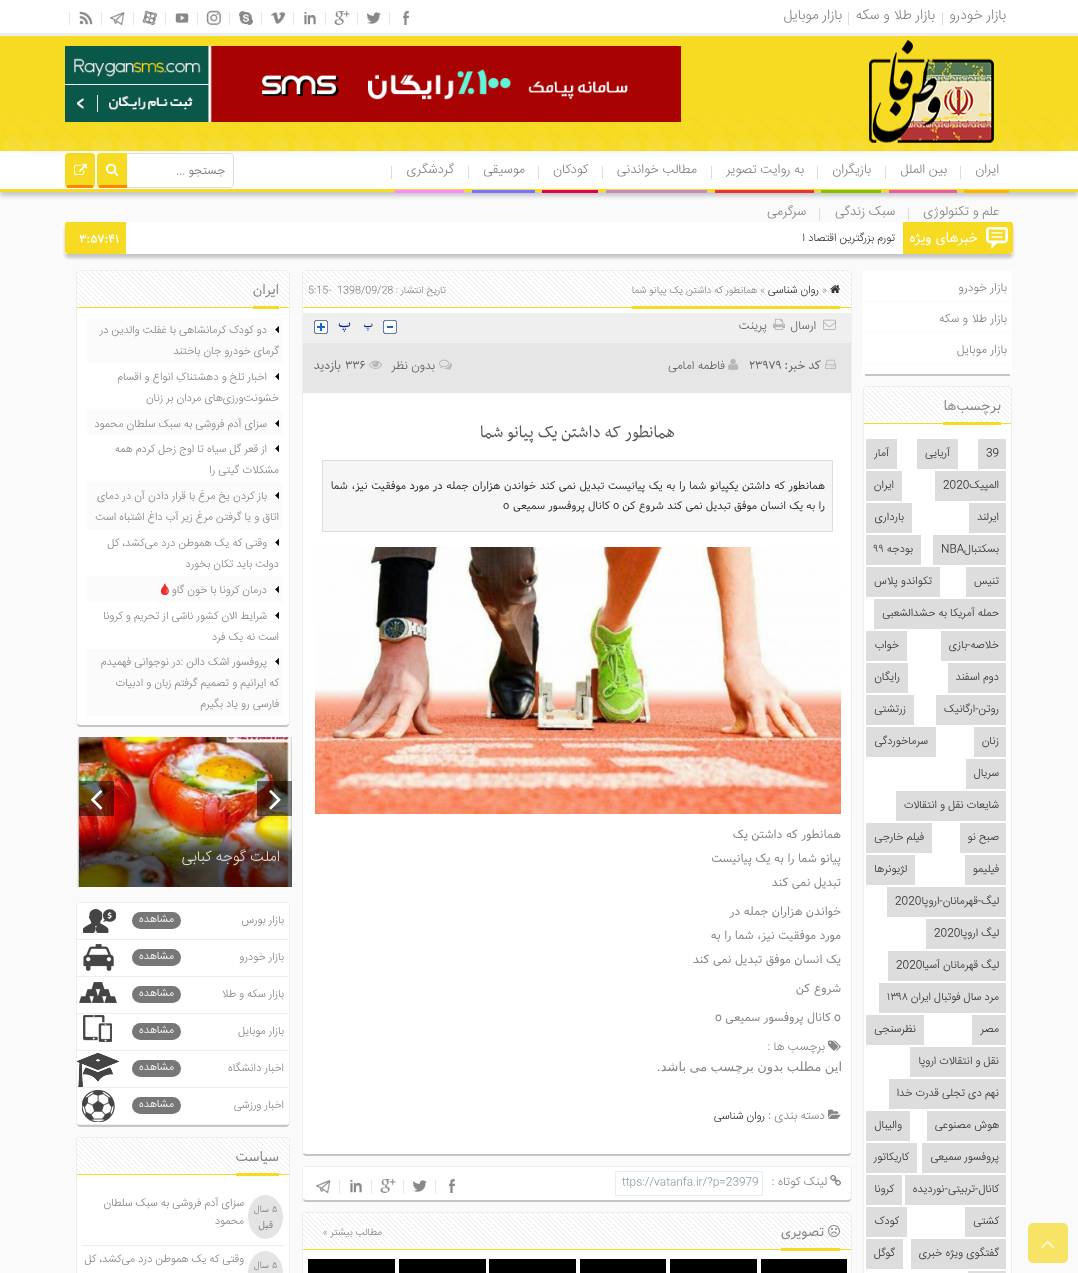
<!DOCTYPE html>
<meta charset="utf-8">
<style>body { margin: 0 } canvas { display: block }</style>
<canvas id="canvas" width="1078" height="1273"></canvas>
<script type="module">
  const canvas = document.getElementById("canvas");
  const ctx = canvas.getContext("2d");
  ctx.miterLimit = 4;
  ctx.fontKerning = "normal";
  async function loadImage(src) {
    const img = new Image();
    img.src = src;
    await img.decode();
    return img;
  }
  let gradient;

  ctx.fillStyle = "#fafafa";
  ctx.fillRect(0, 0, 1078, 1273);
  ctx.fillStyle = "#ffffff";
  ctx.fillRect(0, 0, 1078, 33);
  ctx.fillStyle = "#ededed";
  ctx.fillRect(0, 33, 1078, 3);
  ctx.direction = "rtl";
  ctx.font = "300 14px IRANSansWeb";
  ctx.fillStyle = "#878787";
  ctx.fillText("بازار خودرو", 1006, 19);
  ctx.fillStyle = "#dddddd";
  ctx.fillRect(942, 12, 1, 13);
  ctx.fillStyle = "#878787";
  ctx.fillText("بازار طلا و سکه", 935, 19);
  ctx.fillStyle = "#dddddd";
  ctx.fillRect(848, 12, 1, 13);
  ctx.fillStyle = "#878787";
  ctx.fillText("بازار موبایل", 842, 19);
  ctx.drawImage(await loadImage("img1.png"), 403, 11, 7, 14);
  ctx.fillStyle = "#e6e6e6";
  ctx.fillRect(389, 12, 1, 13);
  ctx.drawImage(await loadImage("img2.png"), 367, 12, 14, 12);
  ctx.fillRect(357, 12, 1, 13);
  ctx.drawImage(await loadImage("img3.png"), 334, 11, 16, 14);
  ctx.fillRect(325, 12, 1, 13);
  ctx.drawImage(await loadImage("img4.png"), 304, 11, 12, 14);
  ctx.fillRect(293, 12, 1, 13);
  ctx.drawImage(await loadImage("img5.png"), 271, 12, 14, 12);
  ctx.fillRect(261, 12, 1, 13);
  ctx.drawImage(await loadImage("img6.png"), 239, 11, 14, 14);
  ctx.fillRect(229, 12, 1, 13);
  ctx.drawImage(await loadImage("img7.png"), 206, 10, 15, 15);
  ctx.fillRect(197, 12, 1, 13);
  ctx.drawImage(await loadImage("img8.png"), 175, 13, 14, 10);
  ctx.fillRect(165, 12, 1, 13);
  ctx.drawImage(await loadImage("img9.png"), 142, 10, 15, 15);
  ctx.fillRect(133, 12, 1, 13);
  ctx.drawImage(await loadImage("img10.png"), 109, 12, 16, 13);
  ctx.fillRect(101, 12, 1, 13);
  ctx.drawImage(await loadImage("img11.png"), 79, 11, 14, 14);
  ctx.fillRect(69, 12, 1, 13);
  ctx.fillStyle = "rgba(0, 0, 0, 0.2)";
  ctx.filter = "blur(2px)";
  ctx.beginPath();
  ctx.rect(0, 155, 1078, 41);
  ctx.fill();
  ctx.filter = "none";
  ctx.fillStyle = "#ffffff";
  ctx.fillRect(0, 151, 1078, 38);
  ctx.fillStyle = "#f7db23";
  ctx.beginPath();
  ctx.roundRect(65, 153, 30, 35, 4);
  ctx.fill();
  ctx.drawImage(await loadImage("img16.png"), 74, 163, 13, 12);
  ctx.fillStyle = "rgba(0, 0, 0, 0.3)";
  ctx.filter = "blur(8.5px)";
  ctx.beginPath();
  ctx.rect(20, 66, 1038, 75);
  ctx.fill();
  ctx.filter = "none";
  ctx.fillStyle = "#f7db23";
  ctx.fillRect(0, 36, 1078, 115);
  ctx.drawImage(await loadImage("img12.png"), 3, 116, 1075, 35);
  ctx.drawImage(await loadImage("img13.png"), 869, 40, 125, 103);
  ctx.drawImage(await loadImage("img14.png"), 65, 46, 616, 76);
  ctx.fillRect(0, 189, 1078, 3);
  ctx.fillStyle = "#ffb500";
  ctx.fillRect(964, 190, 45, 3);
  ctx.font = "300 13px IRANSansWeb";
  ctx.fillStyle = "#878787";
  ctx.fillText("ایران", 999, 173);
  ctx.fillStyle = "#dddddd";
  ctx.fillRect(960, 166, 1, 13);
  ctx.fillStyle = "#ed5ca3";
  ctx.fillRect(889, 190, 68, 3);
  ctx.fillStyle = "#878787";
  ctx.fillText("بین الملل", 947, 173);
  ctx.fillStyle = "#dddddd";
  ctx.fillRect(885, 166, 1, 13);
  ctx.fillStyle = "#83c000";
  ctx.fillRect(821, 190, 60, 3);
  ctx.fillStyle = "#878787";
  ctx.fillText("بازیگران", 871, 173);
  ctx.fillStyle = "#dddddd";
  ctx.fillRect(817, 166, 1, 13);
  ctx.fillStyle = "#ef3131";
  ctx.fillRect(715, 190, 99, 3);
  ctx.fillStyle = "#878787";
  ctx.fillText("به روایت تصویر", 804, 173);
  ctx.fillStyle = "#dddddd";
  ctx.fillRect(711, 166, 1, 13);
  ctx.fillStyle = "#c889c0";
  ctx.fillRect(606, 190, 101, 3);
  ctx.fillStyle = "#878787";
  ctx.fillText("مطالب خواندنی", 697, 173);
  ctx.fillStyle = "#dddddd";
  ctx.fillRect(602, 166, 1, 13);
  ctx.fillStyle = "#e10052";
  ctx.fillRect(542, 190, 56, 3);
  ctx.fillStyle = "#878787";
  ctx.fillText("کودکان", 588, 173);
  ctx.fillStyle = "#dddddd";
  ctx.fillRect(538, 166, 1, 13);
  ctx.fillStyle = "#7773ff";
  ctx.fillRect(472, 190, 63, 3);
  ctx.fillStyle = "#878787";
  ctx.fillText("موسیقی", 525, 173);
  ctx.fillStyle = "#dddddd";
  ctx.fillRect(468, 166, 1, 13);
  ctx.fillStyle = "#ff89ff";
  ctx.fillRect(395, 190, 69, 3);
  ctx.fillStyle = "#878787";
  ctx.fillText("گردشگری", 454, 173);
  ctx.fillStyle = "#dddddd";
  ctx.fillRect(391, 166, 1, 13);
  ctx.fillStyle = "#878787";
  ctx.fillText("علم و تکنولوژی", 999, 215);
  ctx.fillStyle = "#dddddd";
  ctx.fillRect(908, 208, 1, 13);
  ctx.fillStyle = "#878787";
  ctx.fillText("سبک زندگی", 895, 215);
  ctx.fillStyle = "#dddddd";
  ctx.fillRect(819, 208, 1, 13);
  ctx.fillStyle = "#878787";
  ctx.fillText("سرگرمی", 806, 215);
  ctx.fillStyle = "#ffffff";
  ctx.beginPath();
  ctx.roundRect(109.5, 153.5, 124, 34, [0, 3.5, 3.5, 0]);
  ctx.fill();
  ctx.strokeStyle = "#dddddd";
  ctx.stroke();
  ctx.font = "300 12px IRANSansWeb";
  ctx.fillStyle = "#757575";
  ctx.fillText("جستجو ...", 225, 174);
  ctx.fillStyle = "#f7db23";
  ctx.beginPath();
  ctx.roundRect(97, 153, 30, 35, [4, 0, 0, 4]);
  ctx.fill();
  ctx.fillStyle = "#fc8600";
  ctx.fillRect(99, 185, 28, 3);
  ctx.drawImage(await loadImage("img15.png"), 106, 163, 12, 13);
  ctx.fillRect(67, 185, 26, 3);
  ctx.fillStyle = "#f8e464";
  ctx.beginPath();
  ctx.roundRect(1028, 1223, 40, 40, 5);
  ctx.fill();
  ctx.drawImage(await loadImage("img17.png"), 1041, 1240, 14, 9);
  ctx.fillStyle = "rgba(0, 0, 0, 0.2)";
  ctx.filter = "blur(1.5px)";
  ctx.beginPath();
  ctx.roundRect(65, 225, 948, 33, 4);
  ctx.fill();
  ctx.filter = "none";
  ctx.fillStyle = "#ffffff";
  ctx.beginPath();
  ctx.roundRect(65, 222, 948, 33, [2, 2, 4, 4]);
  ctx.fill();
  ctx.fillStyle = "#c5c5c5";
  ctx.fillRect(67, 254, 944, 1);
  ctx.fillStyle = "#f7db23";
  ctx.beginPath();
  ctx.moveTo(903, 222);
  ctx.lineTo(903, 254);
  ctx.lineTo(1009, 254);
  ctx.bezierCurveTo(1011, 254, 1013, 253, 1013, 251);
  ctx.lineTo(1013, 224);
  ctx.bezierCurveTo(1013, 223, 1012, 222, 1011, 222);
  ctx.closePath();
  ctx.fill();
  ctx.drawImage(await loadImage("img18.png"), 986, 227, 22, 22);
  ctx.font = "14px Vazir";
  ctx.fillStyle = "#ffffff";
  ctx.fillText("خبرهای ویژه", 978, 242);
  ctx.font = "300 11px IRANSansWeb";
  ctx.fillStyle = "#333333";
  ctx.fillText("تورم بزرگترین اقتصاد ا", 895, 241);
  ctx.fillStyle = "#f7db23";
  ctx.beginPath();
  ctx.moveTo(67, 222);
  ctx.bezierCurveTo(66, 222, 65, 223, 65, 224);
  ctx.lineTo(65, 251);
  ctx.bezierCurveTo(65, 253, 67, 254, 69, 254);
  ctx.lineTo(126, 254);
  ctx.lineTo(126, 222);
  ctx.closePath();
  ctx.fill();
  ctx.direction = "ltr";
  ctx.font = "bold 12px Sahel";
  ctx.fillStyle = "#ffffff";
  ctx.fillText("3:57:41", 79, 243);
  ctx.fillRect(863, 271, 149, 30);
  ctx.direction = "rtl";
  ctx.font = "300 12px IRANSansWeb";
  ctx.fillStyle = "#878787";
  ctx.fillText("بازار خودرو", 1007, 291);
  ctx.fillStyle = "#ffffff";
  ctx.fillRect(863, 302, 149, 30);
  ctx.fillStyle = "#878787";
  ctx.fillText("بازار طلا و سکه", 1007, 322);
  ctx.fillStyle = "#ffffff";
  ctx.fillRect(863, 333, 149, 30);
  ctx.fillStyle = "#878787";
  ctx.fillText("بازار موبایل", 1007, 353);
  ctx.fillStyle = "#ffffff";
  ctx.beginPath();
  ctx.roundRect(863, 364, 149, 12, [0, 0, 4, 4]);
  ctx.fill();
  ctx.fillStyle = "#c5c5c5";
  ctx.fillRect(865, 374, 145, 2);
  ctx.fillStyle = "#ffffff";
  ctx.beginPath();
  ctx.moveTo(865, 387);
  ctx.lineTo(1010, 387);
  ctx.bezierCurveTo(1011, 387, 1011, 387, 1011, 388);
  ctx.lineTo(1011, 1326);
  ctx.bezierCurveTo(1011, 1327, 1010, 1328, 1008, 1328);
  ctx.lineTo(867, 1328);
  ctx.bezierCurveTo(865, 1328, 864, 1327, 864, 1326);
  ctx.lineTo(864, 388);
  ctx.bezierCurveTo(864, 387, 864, 387, 865, 387);
  ctx.closePath();
  ctx.fill();
  ctx.fillStyle = "#eeeeee";
  ctx.beginPath();
  ctx.moveTo(865, 386);
  ctx.lineTo(864, 387);
  ctx.lineTo(1011, 387);
  ctx.lineTo(1010, 386);
  ctx.closePath();
  ctx.fill();
  ctx.beginPath();
  ctx.moveTo(1012, 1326);
  ctx.lineTo(1012, 387);
  ctx.lineTo(1011, 387);
  ctx.lineTo(1011, 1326);
  ctx.lineTo(1011, 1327);
  ctx.lineTo(1011, 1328);
  ctx.closePath();
  ctx.fill();
  ctx.beginPath();
  ctx.moveTo(863, 388);
  ctx.lineTo(863, 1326);
  ctx.lineTo(864, 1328);
  ctx.lineTo(864, 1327);
  ctx.lineTo(864, 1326);
  ctx.lineTo(864, 387);
  ctx.closePath();
  ctx.fill();
  ctx.drawImage(await loadImage("img19.png"), 864, 387, 147, 35);
  ctx.fillStyle = "#f7db23";
  ctx.fillRect(864, 423, 147, 1);
  ctx.fillRect(943, 422, 58, 3);
  ctx.font = "14px Vazir";
  ctx.fillStyle = "#878787";
  ctx.fillText("برچسب‌ها", 1001, 410);
  ctx.fillStyle = "#dddddd";
  ctx.fillRect(978, 439, 28, 30);
  ctx.direction = "ltr";
  ctx.font = "300 11px IRANSansWeb";
  ctx.fillStyle = "#333333";
  ctx.fillText("39", 986, 456);
  ctx.fillStyle = "#dddddd";
  ctx.fillRect(917, 439, 41, 30);
  ctx.direction = "rtl";
  ctx.fillStyle = "#333333";
  ctx.fillText("آریایی", 950, 456);
  ctx.fillStyle = "#dddddd";
  ctx.fillRect(866, 439, 31, 30);
  ctx.fillStyle = "#333333";
  ctx.fillText("آمار", 889, 456);
  ctx.fillStyle = "#dddddd";
  ctx.fillRect(935, 471, 71, 30);
  ctx.fillStyle = "#333333";
  ctx.fillText("المپیک", 999, 488);
  ctx.direction = "ltr";
  ctx.fillText("2020", 943, 488);
  ctx.fillStyle = "#dddddd";
  ctx.fillRect(866, 471, 36, 30);
  ctx.direction = "rtl";
  ctx.fillStyle = "#333333";
  ctx.fillText("ایران", 894, 488);
  ctx.fillStyle = "#dddddd";
  ctx.fillRect(969, 503, 37, 30);
  ctx.fillStyle = "#333333";
  ctx.fillText("ایرلند", 999, 520);
  ctx.fillStyle = "#dddddd";
  ctx.fillRect(866, 503, 46, 30);
  ctx.fillStyle = "#333333";
  ctx.fillText("بارداری", 904, 520);
  ctx.fillStyle = "#dddddd";
  ctx.fillRect(933, 535, 73, 30);
  ctx.fillStyle = "#333333";
  ctx.fillText("بسکتبال", 999, 552);
  ctx.direction = "ltr";
  ctx.fillText("NBA", 941, 552);
  ctx.fillStyle = "#dddddd";
  ctx.fillRect(866, 535, 55, 30);
  ctx.direction = "rtl";
  ctx.fillStyle = "#333333";
  ctx.fillText("بودجه", 913, 552);
  ctx.direction = "ltr";
  ctx.fillText("۹۹", 874, 552);
  ctx.fillStyle = "#dddddd";
  ctx.fillRect(966, 567, 40, 30);
  ctx.direction = "rtl";
  ctx.fillStyle = "#333333";
  ctx.fillText("تنیس", 999, 584);
  ctx.fillStyle = "#dddddd";
  ctx.fillRect(866, 567, 74, 30);
  ctx.fillStyle = "#333333";
  ctx.fillText("تکواندو پلاس", 932, 584);
  ctx.fillStyle = "#dddddd";
  ctx.fillRect(874, 599, 132, 30);
  ctx.fillStyle = "#333333";
  ctx.fillText("حمله آمریکا به حشدالشعبی", 999, 616);
  ctx.fillStyle = "#dddddd";
  ctx.fillRect(941, 631, 65, 30);
  ctx.fillStyle = "#333333";
  ctx.fillText("خلاصه-بازی", 999, 648);
  ctx.fillStyle = "#dddddd";
  ctx.fillRect(866, 631, 41, 30);
  ctx.fillStyle = "#333333";
  ctx.fillText("خواب", 899, 648);
  ctx.fillStyle = "#dddddd";
  ctx.fillRect(948, 663, 58, 30);
  ctx.fillStyle = "#333333";
  ctx.fillText("دوم اسفند", 999, 680);
  ctx.fillStyle = "#dddddd";
  ctx.fillRect(866, 663, 42, 30);
  ctx.fillStyle = "#333333";
  ctx.fillText("رایگان", 900, 680);
  ctx.fillStyle = "#dddddd";
  ctx.fillRect(936, 695, 70, 30);
  ctx.fillStyle = "#333333";
  ctx.fillText("روتن-ارگانیک", 999, 712);
  ctx.fillStyle = "#dddddd";
  ctx.fillRect(866, 695, 48, 30);
  ctx.fillStyle = "#333333";
  ctx.fillText("زرتشتی", 906, 712);
  ctx.fillStyle = "#dddddd";
  ctx.fillRect(974, 727, 32, 30);
  ctx.fillStyle = "#333333";
  ctx.fillText("زنان", 999, 744);
  ctx.fillStyle = "#dddddd";
  ctx.fillRect(866, 727, 70, 30);
  ctx.fillStyle = "#333333";
  ctx.fillText("سرماخوردگی", 928, 744);
  ctx.fillStyle = "#dddddd";
  ctx.fillRect(966, 759, 40, 30);
  ctx.fillStyle = "#333333";
  ctx.fillText("سریال", 999, 776);
  ctx.fillStyle = "#dddddd";
  ctx.fillRect(896, 791, 110, 30);
  ctx.fillStyle = "#333333";
  ctx.fillText("شایعات نقل و انتقالات", 999, 808);
  ctx.fillStyle = "#dddddd";
  ctx.fillRect(960, 823, 46, 30);
  ctx.fillStyle = "#333333";
  ctx.fillText("صبح نو", 999, 840);
  ctx.fillStyle = "#dddddd";
  ctx.fillRect(866, 823, 66, 30);
  ctx.fillStyle = "#333333";
  ctx.fillText("فیلم خارجی", 924, 840);
  ctx.fillStyle = "#dddddd";
  ctx.fillRect(965, 855, 41, 30);
  ctx.fillStyle = "#333333";
  ctx.fillText("فیلیمو", 999, 872);
  ctx.fillStyle = "#dddddd";
  ctx.fillRect(866, 855, 49, 30);
  ctx.fillStyle = "#333333";
  ctx.fillText("لژیونرها", 907, 872);
  ctx.fillStyle = "#dddddd";
  ctx.fillRect(887, 887, 119, 30);
  ctx.fillStyle = "#333333";
  ctx.fillText("لیگ-قهرمانان-اروپا", 999, 904);
  ctx.direction = "ltr";
  ctx.fillText("2020", 895, 904);
  ctx.fillStyle = "#dddddd";
  ctx.fillRect(926, 919, 80, 30);
  ctx.direction = "rtl";
  ctx.fillStyle = "#333333";
  ctx.fillText("لیگ اروپا", 999, 936);
  ctx.direction = "ltr";
  ctx.fillText("2020", 934, 936);
  ctx.fillStyle = "#dddddd";
  ctx.fillRect(888, 951, 118, 30);
  ctx.direction = "rtl";
  ctx.fillStyle = "#333333";
  ctx.fillText("لیگ قهرمانان آسیا", 999, 968);
  ctx.direction = "ltr";
  ctx.fillText("2020", 896, 968);
  ctx.fillStyle = "#dddddd";
  ctx.fillRect(879, 983, 127, 30);
  ctx.direction = "rtl";
  ctx.fillStyle = "#333333";
  ctx.fillText("مرد سال فوتبال ایران", 999, 1000);
  ctx.direction = "ltr";
  ctx.fillText("۱۳۹۸", 887, 1000);
  ctx.fillStyle = "#dddddd";
  ctx.fillRect(972, 1015, 34, 30);
  ctx.direction = "rtl";
  ctx.fillStyle = "#333333";
  ctx.fillText("مصر", 999, 1032);
  ctx.fillStyle = "#dddddd";
  ctx.fillRect(866, 1015, 58, 30);
  ctx.fillStyle = "#333333";
  ctx.fillText("نظرسنجی", 916, 1032);
  ctx.fillStyle = "#dddddd";
  ctx.fillRect(910, 1047, 96, 30);
  ctx.fillStyle = "#333333";
  ctx.fillText("نقل و انتقالات اروپا", 999, 1064);
  ctx.fillStyle = "#dddddd";
  ctx.fillRect(889, 1079, 117, 30);
  ctx.fillStyle = "#333333";
  ctx.fillText("نهم دی تجلی قدرت خدا", 999, 1096);
  ctx.fillStyle = "#dddddd";
  ctx.fillRect(927, 1111, 79, 30);
  ctx.fillStyle = "#333333";
  ctx.fillText("هوش مصنوعی", 999, 1128);
  ctx.fillStyle = "#dddddd";
  ctx.fillRect(866, 1111, 44, 30);
  ctx.fillStyle = "#333333";
  ctx.fillText("والیبال", 902, 1128);
  ctx.fillStyle = "#dddddd";
  ctx.fillRect(922, 1143, 84, 30);
  ctx.fillStyle = "#333333";
  ctx.fillText("پروفسور سمیعی", 999, 1160);
  ctx.fillStyle = "#dddddd";
  ctx.fillRect(866, 1143, 51, 30);
  ctx.fillStyle = "#333333";
  ctx.fillText("کاریکاتور", 909, 1160);
  ctx.fillStyle = "#dddddd";
  ctx.fillRect(905, 1175, 101, 30);
  ctx.fillStyle = "#333333";
  ctx.fillText("کانال-تربیتی-نوردیده", 999, 1192);
  ctx.fillStyle = "#dddddd";
  ctx.fillRect(866, 1175, 36, 30);
  ctx.fillStyle = "#333333";
  ctx.fillText("کرونا", 894, 1192);
  ctx.fillStyle = "#dddddd";
  ctx.fillRect(965, 1207, 41, 30);
  ctx.fillStyle = "#333333";
  ctx.fillText("کشتی", 999, 1224);
  ctx.fillStyle = "#dddddd";
  ctx.fillRect(866, 1207, 41, 30);
  ctx.fillStyle = "#333333";
  ctx.fillText("کودک", 899, 1224);
  ctx.fillStyle = "#dddddd";
  ctx.fillRect(911, 1239, 95, 30);
  ctx.fillStyle = "#333333";
  ctx.fillText("گفتگوی ویژه خبری", 999, 1256);
  ctx.fillStyle = "#dddddd";
  ctx.fillRect(866, 1239, 37, 30);
  ctx.fillStyle = "#333333";
  ctx.fillText("گوگل", 895, 1256);
  ctx.fillStyle = "#dddddd";
  ctx.fillRect(968, 1271, 38, 2);
  ctx.fillStyle = "#ffffff";
  ctx.beginPath();
  ctx.moveTo(304, 271);
  ctx.lineTo(850, 271);
  ctx.bezierCurveTo(851, 271, 851, 271, 851, 272);
  ctx.lineTo(851, 1152);
  ctx.bezierCurveTo(851, 1153, 850, 1154, 848, 1154);
  ctx.lineTo(306, 1154);
  ctx.bezierCurveTo(304, 1154, 303, 1153, 303, 1152);
  ctx.lineTo(303, 272);
  ctx.bezierCurveTo(303, 271, 303, 271, 304, 271);
  ctx.closePath();
  ctx.fill();
  ctx.fillStyle = "#eeeeee";
  ctx.beginPath();
  ctx.moveTo(304, 270);
  ctx.lineTo(303, 271);
  ctx.lineTo(851, 271);
  ctx.lineTo(850, 270);
  ctx.closePath();
  ctx.fill();
  ctx.beginPath();
  ctx.moveTo(852, 1152);
  ctx.lineTo(852, 272);
  ctx.lineTo(851, 271);
  ctx.lineTo(851, 1152);
  ctx.lineTo(851, 1153);
  ctx.lineTo(851, 1154);
  ctx.closePath();
  ctx.fill();
  ctx.fillStyle = "#c5c5c5";
  ctx.beginPath();
  ctx.moveTo(306, 1156);
  ctx.lineTo(849, 1156);
  ctx.lineTo(851, 1154);
  ctx.lineTo(851, 1153);
  ctx.lineTo(848, 1154);
  ctx.lineTo(306, 1154);
  ctx.lineTo(303, 1153);
  ctx.lineTo(303, 1154);
  ctx.bezierCurveTo(304, 1155, 305, 1156, 306, 1156);
  ctx.closePath();
  ctx.fill();
  ctx.fillStyle = "#eeeeee";
  ctx.beginPath();
  ctx.moveTo(302, 272);
  ctx.lineTo(302, 1152);
  ctx.lineTo(303, 1154);
  ctx.lineTo(303, 1153);
  ctx.lineTo(303, 1152);
  ctx.lineTo(303, 271);
  ctx.closePath();
  ctx.fill();
  ctx.drawImage(await loadImage("img20.png"), 303, 271, 548, 35);
  ctx.fillStyle = "#f7db23";
  ctx.fillRect(303, 307, 548, 1);
  ctx.fillRect(632, 306, 208, 3);
  ctx.drawImage(await loadImage("img21.png"), 830, 285, 10, 8);
  ctx.direction = "ltr";
  ctx.font = "300 10px IRANSansWeb";
  ctx.fillStyle = "#878787";
  ctx.fillText("»", 822, 293);
  ctx.direction = "rtl";
  ctx.font = "300 11px IRANSansWeb";
  ctx.fillStyle = "#333333";
  ctx.fillText("روان شناسی", 819, 293);
  ctx.font = "300 10px IRANSansWeb";
  ctx.fillStyle = "#878787";
  ctx.fillText("» همانطور که داشتن یک پیانو شما", 765, 293);
  ctx.fillText("تاریخ انتشار :", 446, 293);
  ctx.direction = "ltr";
  ctx.fillText("1398/09/28", 337, 293);
  ctx.fillText("5:15-", 308, 293);
  ctx.fillStyle = "#efefef";
  ctx.fillRect(303, 313, 548, 30);
  ctx.drawImage(await loadImage("img22.png"), 823, 319, 13, 11);
  ctx.direction = "rtl";
  ctx.font = "300 12px IRANSansWeb";
  ctx.fillStyle = "#666666";
  ctx.fillText("ارسال", 816, 329);
  ctx.drawImage(await loadImage("img23.png"), 773, 318, 12, 12);
  ctx.fillText("پرینت", 767, 329);
  ctx.drawImage(await loadImage("img24.png"), 364, 320, 33, 14);
  ctx.drawImage(await loadImage("img25.png"), 314, 320, 37, 14);
  ctx.fillStyle = "#e6e6e6";
  ctx.fillRect(303, 343, 548, 50);
  ctx.drawImage(await loadImage("img26.png"), 825, 359, 12, 10);
  ctx.font = "12px Sahel";
  ctx.fillStyle = "#666666";
  ctx.fillText("کد خبر:", 821, 369);
  ctx.direction = "ltr";
  ctx.fillText("23979", 749, 369);
  ctx.drawImage(await loadImage("img27.png"), 728, 358, 11, 12);
  ctx.direction = "rtl";
  ctx.font = "300 12px IRANSansWeb";
  ctx.fillText("فاطمه امامی", 725, 369);
  ctx.drawImage(await loadImage("img28.png"), 439, 359, 13, 11);
  ctx.fillText("بدون نظر", 435, 369);
  ctx.drawImage(await loadImage("img29.png"), 369, 360, 13, 9);
  ctx.direction = "ltr";
  ctx.font = "12px Sahel";
  ctx.fillText("336", 345, 369);
  ctx.direction = "rtl";
  ctx.fillText("بازدید", 341, 369);
  ctx.font = "20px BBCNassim";
  ctx.fillStyle = "#555555";
  ctx.fillText("همانطور که داشتن یک پیانو شما", 675, 437);
  ctx.fillStyle = "#f6f6f6";
  ctx.beginPath();
  ctx.rect(322.5, 460.5, 510, 71);
  ctx.fill();
  ctx.stroke();
  ctx.wordSpacing = "0.4px";
  ctx.font = "11px Vazir";
  ctx.fillStyle = "#333333";
  ctx.fillText("همانطور که داشتن یکپیانو شما را به یک پیانیست تبدیل نمی کند خواندن هزاران جمله در مورد موفقیت نیز، شما", 825, 489);
  ctx.wordSpacing = "0px";
  ctx.fillText("را به یک انسان موفق تبدیل نمی کند شروع کن", 825, 509);
  ctx.direction = "ltr";
  ctx.fillText("o", 613, 509);
  ctx.direction = "rtl";
  ctx.fillText("کانال پروفسور سمیعی", 610, 509);
  ctx.direction = "ltr";
  ctx.fillText("o", 503, 509);
  ctx.drawImage(await loadImage("img30.png"), 315, 547, 526, 267);
  ctx.direction = "rtl";
  ctx.font = "12px Vazir";
  ctx.fillStyle = "#878787";
  ctx.fillText("همانطور که داشتن یک", 841, 838);
  ctx.fillText("پیانو شما را به یک پیانیست", 841, 862);
  ctx.fillText("تبدیل نمی کند", 841, 886);
  ctx.fillText("خواندن هزاران جمله در", 841, 915);
  ctx.fillText("مورد موفقیت نیز، شما را به", 841, 939);
  ctx.fillText("یک انسان موفق تبدیل نمی کند", 841, 963);
  ctx.fillText("شروع کن", 841, 992);
  ctx.direction = "ltr";
  ctx.fillText("o", 834, 1021);
  ctx.direction = "rtl";
  ctx.fillText("کانال پروفسور سمیعی", 831, 1021);
  ctx.direction = "ltr";
  ctx.fillText("o", 715, 1021);
  ctx.drawImage(await loadImage("img31.png"), 828, 1040, 13, 11);
  ctx.direction = "rtl";
  ctx.font = "300 12px IRANSansWeb";
  ctx.fillText("برچسب ها :", 825, 1050);
  ctx.wordSpacing = "-0.75px";
  ctx.font = "13px DejaVu Sans";
  ctx.fillText("این مطلب بدون برچسب می باشد.", 842, 1071);
  ctx.drawImage(await loadImage("img32.png"), 828, 1109, 13, 10);
  ctx.wordSpacing = "0px";
  ctx.font = "300 12px IRANSansWeb";
  ctx.fillText("دسته بندی :", 825, 1119);
  ctx.font = "300 11px IRANSansWeb";
  ctx.fillStyle = "#333333";
  ctx.fillText("روان شناسی", 765, 1119);
  ctx.fillStyle = "#ffffff";
  ctx.beginPath();
  ctx.moveTo(304, 1167);
  ctx.lineTo(850, 1167);
  ctx.bezierCurveTo(851, 1167, 851, 1167, 851, 1168);
  ctx.lineTo(851, 1198);
  ctx.bezierCurveTo(851, 1199, 850, 1200, 848, 1200);
  ctx.lineTo(306, 1200);
  ctx.bezierCurveTo(304, 1200, 303, 1199, 303, 1198);
  ctx.lineTo(303, 1168);
  ctx.bezierCurveTo(303, 1167, 303, 1167, 304, 1167);
  ctx.closePath();
  ctx.fill();
  ctx.fillStyle = "#eeeeee";
  ctx.beginPath();
  ctx.moveTo(304, 1166);
  ctx.lineTo(303, 1167);
  ctx.lineTo(851, 1167);
  ctx.lineTo(850, 1166);
  ctx.closePath();
  ctx.fill();
  ctx.beginPath();
  ctx.moveTo(852, 1198);
  ctx.lineTo(852, 1168);
  ctx.lineTo(851.5, 1166.5);
  ctx.lineTo(851, 1167);
  ctx.lineTo(851, 1173);
  ctx.bezierCurveTo(851, 1176, 851.5, 1198, 850.5, 1199);
  ctx.lineTo(851, 1200.5);
  ctx.bezierCurveTo(851.5, 1199.5, 852, 1199, 852, 1198);
  ctx.closePath();
  ctx.fill();
  ctx.fillStyle = "#c5c5c5";
  ctx.beginPath();
  ctx.moveTo(306, 1202);
  ctx.lineTo(849, 1202);
  ctx.lineTo(851, 1200);
  ctx.lineTo(851, 1199);
  ctx.lineTo(848, 1200);
  ctx.lineTo(306, 1200);
  ctx.lineTo(303, 1199);
  ctx.lineTo(303, 1200);
  ctx.bezierCurveTo(304, 1201, 305, 1202, 306, 1202);
  ctx.closePath();
  ctx.fill();
  ctx.fillStyle = "#eeeeee";
  ctx.beginPath();
  ctx.moveTo(302, 1168);
  ctx.lineTo(302, 1198);
  ctx.bezierCurveTo(302, 1199, 302.5, 1199.5, 303, 1200.5);
  ctx.lineTo(303.5, 1199);
  ctx.bezierCurveTo(302.5, 1198, 303, 1176, 303, 1173);
  ctx.lineTo(303, 1167);
  ctx.lineTo(302.5, 1166.5);
  ctx.closePath();
  ctx.fill();
  ctx.drawImage(await loadImage("img33.png"), 830, 1174, 11, 12);
  ctx.font = "300 12px IRANSansWeb";
  ctx.fillStyle = "#878787";
  ctx.fillText("لینک کوتاه :", 827, 1185);
  ctx.strokeStyle = "#eaedf1";
  ctx.strokeRect(615.5, 1171.5, 147, 24);
  ctx.direction = "ltr";
  ctx.font = "300 11px IRANSansWeb";
  ctx.fillStyle = "#8ea1aa";
  ctx.fillText("ttps://vatanfa.ir/?p=23979", 622, 1185);
  ctx.drawImage(await loadImage("img1.png"), 449, 1179, 7, 14);
  ctx.fillStyle = "#e6e6e6";
  ctx.fillRect(435, 1180, 1, 13);
  ctx.drawImage(await loadImage("img2.png"), 413, 1180, 14, 12);
  ctx.fillRect(403, 1180, 1, 13);
  ctx.drawImage(await loadImage("img3.png"), 380, 1179, 16, 14);
  ctx.fillRect(371, 1180, 1, 13);
  ctx.drawImage(await loadImage("img4.png"), 350, 1179, 12, 14);
  ctx.fillRect(339, 1180, 1, 13);
  ctx.drawImage(await loadImage("img10.png"), 315, 1180, 16, 13);
  ctx.fillStyle = "#ffffff";
  ctx.beginPath();
  ctx.moveTo(304, 1213);
  ctx.lineTo(850, 1213);
  ctx.bezierCurveTo(851, 1213, 851, 1213, 851, 1214);
  ctx.lineTo(851, 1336);
  ctx.bezierCurveTo(851, 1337, 850, 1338, 848, 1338);
  ctx.lineTo(306, 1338);
  ctx.bezierCurveTo(304, 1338, 303, 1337, 303, 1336);
  ctx.lineTo(303, 1214);
  ctx.bezierCurveTo(303, 1213, 303, 1213, 304, 1213);
  ctx.closePath();
  ctx.fill();
  ctx.fillStyle = "#eeeeee";
  ctx.beginPath();
  ctx.moveTo(304, 1212);
  ctx.lineTo(303, 1213);
  ctx.lineTo(851, 1213);
  ctx.lineTo(850, 1212);
  ctx.closePath();
  ctx.fill();
  ctx.beginPath();
  ctx.moveTo(852, 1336);
  ctx.lineTo(852, 1214);
  ctx.lineTo(851, 1213);
  ctx.lineTo(851, 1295);
  ctx.bezierCurveTo(851, 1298, 852, 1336, 851, 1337);
  ctx.lineTo(851, 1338);
  ctx.closePath();
  ctx.fill();
  ctx.beginPath();
  ctx.moveTo(302, 1214);
  ctx.lineTo(302, 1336);
  ctx.lineTo(303, 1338);
  ctx.lineTo(303, 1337);
  ctx.bezierCurveTo(302, 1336, 303, 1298, 303, 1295);
  ctx.lineTo(303, 1213);
  ctx.closePath();
  ctx.fill();
  ctx.drawImage(await loadImage("img20.png"), 303, 1213, 548, 35);
  ctx.fillStyle = "#f7db23";
  ctx.fillRect(303, 1249, 548, 1);
  ctx.fillRect(781, 1248, 59, 3);
  ctx.drawImage(await loadImage("img34.png"), 828, 1225, 12, 12);
  ctx.direction = "rtl";
  ctx.font = "14px Vazir";
  ctx.fillStyle = "#878787";
  ctx.fillText("تصویری", 824, 1236);
  ctx.font = "300 10px IRANSansWeb";
  ctx.fillText("مطالب بیشتر »", 382, 1235);
  ctx.fillStyle = "#000000";
  ctx.fillRect(761, 1259, 86, 14);
  ctx.fillRect(670, 1259, 87, 14);
  ctx.fillRect(580, 1259, 86, 14);
  ctx.fillRect(489, 1259, 87, 14);
  ctx.fillRect(399, 1259, 87, 14);
  ctx.fillRect(308, 1259, 87, 14);
  ctx.fillStyle = "#ffffff";
  ctx.beginPath();
  ctx.moveTo(78, 271);
  ctx.lineTo(288, 271);
  ctx.bezierCurveTo(289, 271, 289, 271, 289, 272);
  ctx.lineTo(289, 723);
  ctx.bezierCurveTo(289, 724, 288, 725, 286, 725);
  ctx.lineTo(80, 725);
  ctx.bezierCurveTo(78, 725, 77, 724, 77, 723);
  ctx.lineTo(77, 272);
  ctx.bezierCurveTo(77, 271, 77, 271, 78, 271);
  ctx.closePath();
  ctx.fill();
  ctx.fillStyle = "#eeeeee";
  ctx.beginPath();
  ctx.moveTo(78, 270);
  ctx.lineTo(77, 271);
  ctx.lineTo(289, 271);
  ctx.lineTo(288, 270);
  ctx.closePath();
  ctx.fill();
  ctx.beginPath();
  ctx.moveTo(290, 723);
  ctx.lineTo(290, 272);
  ctx.lineTo(289, 271);
  ctx.lineTo(289, 723);
  ctx.lineTo(289, 724);
  ctx.lineTo(289, 725);
  ctx.closePath();
  ctx.fill();
  ctx.fillStyle = "#c5c5c5";
  ctx.beginPath();
  ctx.moveTo(80, 727);
  ctx.lineTo(287, 727);
  ctx.lineTo(289, 725);
  ctx.lineTo(289, 724);
  ctx.lineTo(286, 725);
  ctx.lineTo(80, 725);
  ctx.lineTo(77, 724);
  ctx.lineTo(77, 725);
  ctx.bezierCurveTo(78, 726, 79, 727, 80, 727);
  ctx.closePath();
  ctx.fill();
  ctx.fillStyle = "#eeeeee";
  ctx.beginPath();
  ctx.moveTo(76, 272);
  ctx.lineTo(76, 573);
  ctx.lineTo(76, 724);
  ctx.lineTo(77, 725);
  ctx.lineTo(77, 724);
  ctx.lineTo(77, 723);
  ctx.lineTo(77, 271);
  ctx.closePath();
  ctx.fill();
  ctx.drawImage(await loadImage("img35.png"), 77, 271, 212, 35);
  ctx.fillStyle = "#f7db23";
  ctx.fillRect(77, 307, 212, 1);
  ctx.fillRect(253, 306, 26, 3);
  ctx.font = "14px Vazir";
  ctx.fillStyle = "#878787";
  ctx.fillText("ایران", 279, 294);
  ctx.fillStyle = "#fbfbfb";
  ctx.beginPath();
  ctx.roundRect(87, 319, 196, 47, [0, 0, 2, 2]);
  ctx.fill();
  ctx.drawImage(await loadImage("img36.png"), 275, 326, 4, 7);
  ctx.font = "300 11px IRANSansWeb";
  ctx.fillStyle = "#878787";
  ctx.fillText("دو کودک کرمانشاهی با غفلت والدین در", 267, 333);
  ctx.fillText("گرمای خودرو جان باختند", 279, 354);
  ctx.fillStyle = "#ffffff";
  ctx.beginPath();
  ctx.roundRect(87, 363, 196, 50, 2);
  ctx.fill();
  ctx.drawImage(await loadImage("img37.png"), 275, 373, 4, 7);
  ctx.fillStyle = "#878787";
  ctx.fillText("اخبار تلخ و دهشتناکِ انواع و اقسام", 267, 380);
  ctx.fillText("خشونت‌ورزی‌های مردان بر زنان", 279, 401);
  ctx.fillStyle = "#fbfbfb";
  ctx.beginPath();
  ctx.roundRect(87, 410, 196, 28, 2);
  ctx.fill();
  ctx.drawImage(await loadImage("img36.png"), 275, 420, 4, 7);
  ctx.fillStyle = "#878787";
  ctx.fillText("سزای آدم فروشی به سبک سلطان محمود", 267, 427);
  ctx.fillStyle = "#ffffff";
  ctx.beginPath();
  ctx.roundRect(87, 435, 196, 50, 2);
  ctx.fill();
  ctx.drawImage(await loadImage("img37.png"), 275, 445, 4, 7);
  ctx.fillStyle = "#878787";
  ctx.fillText("از قعر گل سیاه تا اوج زحل کردم همه", 267, 452);
  ctx.fillText("مشکلات گیتی را", 279, 473);
  ctx.fillStyle = "#fbfbfb";
  ctx.beginPath();
  ctx.roundRect(87, 482, 196, 50, 2);
  ctx.fill();
  ctx.drawImage(await loadImage("img36.png"), 275, 492, 4, 7);
  ctx.fillStyle = "#878787";
  ctx.fillText("باز کردن یخ مرغ با قرار دادن آن در دمای", 267, 499);
  ctx.fillText("اتاق و یا گرفتن مرغ زیر آب داغ اشتباه است ️", 279, 520);
  ctx.fillStyle = "#ffffff";
  ctx.beginPath();
  ctx.roundRect(87, 529, 196, 50, 2);
  ctx.fill();
  ctx.drawImage(await loadImage("img37.png"), 275, 539, 4, 7);
  ctx.fillStyle = "#878787";
  ctx.fillText("‌وقتى که یک هموطن درد می‌کشد، کل", 267, 546);
  ctx.fillText("دولت باید تکان بخورد", 279, 567);
  ctx.fillStyle = "#fbfbfb";
  ctx.beginPath();
  ctx.roundRect(87, 576, 196, 29, 2);
  ctx.fill();
  ctx.drawImage(await loadImage("img36.png"), 275, 586, 4, 7);
  ctx.fillStyle = "#878787";
  ctx.fillText("درمان کرونا با خون گاو", 267, 593);
  ctx.font = "11px Noto Color Emoji";
  ctx.fillText("🩸", 172, 593);
  ctx.fillStyle = "#ffffff";
  ctx.beginPath();
  ctx.roundRect(87, 602, 196, 50, 2);
  ctx.fill();
  ctx.drawImage(await loadImage("img37.png"), 275, 612, 4, 7);
  ctx.font = "300 11px IRANSansWeb";
  ctx.fillStyle = "#878787";
  ctx.fillText("شرایط الان کشور ناشی از تحریم و کرونا", 267, 619);
  ctx.fillText("است نه یک فرد", 279, 640);
  ctx.fillStyle = "#fbfbfb";
  ctx.beginPath();
  ctx.roundRect(87, 649, 196, 70, 2);
  ctx.fill();
  ctx.drawImage(await loadImage("img36.png"), 275, 658, 4, 7);
  ctx.fillStyle = "#878787";
  ctx.fillText("️پروفسور اشک دالن :در نوجوانی فهمیدم", 267, 665);
  ctx.fillText("که ایرانیم و تصمیم گرفتم زبان و ادبیات", 279, 686);
  ctx.fillText("فارسی رو یاد بگیرم", 279, 707);
  ctx.save();
  ctx.beginPath();
  ctx.rect(82, 319, 201, 400);
  ctx.clip();
  ctx.fillStyle = "#ffffff";
  ctx.beginPath();
  ctx.moveTo(89, 716);
  ctx.lineTo(281, 716);
  ctx.bezierCurveTo(282, 716, 283, 717, 283, 718);
  ctx.lineTo(283, 725);
  ctx.lineTo(87, 725);
  ctx.bezierCurveTo(87, 723, 86, 716, 89, 716);
  ctx.closePath();
  ctx.fill();
  ctx.restore();
  ctx.fillStyle = "#ffffff";
  ctx.beginPath();
  ctx.moveTo(78, 903);
  ctx.lineTo(288, 903);
  ctx.bezierCurveTo(289, 903, 289, 903, 289, 904);
  ctx.lineTo(289, 1123);
  ctx.bezierCurveTo(289, 1124, 288, 1125, 286, 1125);
  ctx.lineTo(80, 1125);
  ctx.bezierCurveTo(78, 1125, 77, 1124, 77, 1123);
  ctx.lineTo(77, 904);
  ctx.bezierCurveTo(77, 903, 77, 903, 78, 903);
  ctx.closePath();
  ctx.fill();
  ctx.fillStyle = "#eeeeee";
  ctx.beginPath();
  ctx.moveTo(78, 902);
  ctx.lineTo(77, 903);
  ctx.lineTo(289, 903);
  ctx.lineTo(288, 902);
  ctx.closePath();
  ctx.fill();
  ctx.beginPath();
  ctx.moveTo(290, 1123);
  ctx.lineTo(290, 904);
  ctx.lineTo(289, 903);
  ctx.lineTo(289, 1123);
  ctx.lineTo(289, 1124);
  ctx.lineTo(289, 1125);
  ctx.closePath();
  ctx.fill();
  ctx.beginPath();
  ctx.moveTo(76, 904);
  ctx.lineTo(76, 1123);
  ctx.lineTo(77, 1125);
  ctx.lineTo(77, 1124);
  ctx.lineTo(77, 1123);
  ctx.lineTo(77, 903);
  ctx.closePath();
  ctx.fill();
  ctx.drawImage(await loadImage("img41.png"), 83, 909, 33, 24);
  ctx.fillRect(77, 939, 211, 1);
  ctx.fillStyle = "#777777";
  ctx.beginPath();
  ctx.roundRect(132, 912, 49, 17, 8.5);
  ctx.fill();
  ctx.drawImage(await loadImage("img42.png"), 83, 944, 31, 27);
  ctx.beginPath();
  ctx.roundRect(132, 949, 49, 17, 8.5);
  ctx.fill();
  ctx.save();
  ctx.beginPath();
  ctx.rect(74, 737, 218, 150);
  ctx.clip();
  ctx.fillStyle = "rgba(0, 0, 0, 0.7)";
  ctx.filter = "blur(1px)";
  ctx.beginPath();
  ctx.rect(79, 738, 213, 230);
  ctx.fill();
  ctx.filter = "none";
  ctx.restore();
  ctx.drawImage(await loadImage("img40.png"), 79, 737, 213, 150);
  ctx.fillStyle = "rgba(0, 0, 0, 0.5)";
  ctx.fillRect(257, 781, 35, 35);
  ctx.drawImage(await loadImage("img38.png"), 269, 790, 12, 20);
  ctx.fillRect(79, 781, 35, 35);
  ctx.drawImage(await loadImage("img39.png"), 90, 790, 13, 20);
  gradient = ctx.createLinearGradient(181, 828, 181, 887);
  gradient.addColorStop(0, "rgba(0, 0, 0, 0)");
  gradient.addColorStop(0.4, "rgba(0, 0, 0, 0.64)");
  ctx.fillStyle = gradient;
  ctx.fillRect(79, 829, 213, 58);
  ctx.font = "300 15px IRANSansWeb";
  ctx.fillStyle = "#dbd7d4";
  ctx.fillText("املت گوجه کبابی", 280, 861);
  ctx.fillStyle = "#c5c5c5";
  ctx.beginPath();
  ctx.moveTo(80, 1127);
  ctx.lineTo(287, 1127);
  ctx.lineTo(289, 1125);
  ctx.lineTo(289, 1124);
  ctx.lineTo(286, 1125);
  ctx.lineTo(80, 1125);
  ctx.lineTo(77, 1124);
  ctx.lineTo(77, 1125);
  ctx.bezierCurveTo(78, 1126, 79, 1127, 80, 1127);
  ctx.closePath();
  ctx.fill();
  ctx.font = "300 11px IRANSansWeb";
  ctx.fillStyle = "#878787";
  ctx.fillText("بازار بورس", 284, 923);
  ctx.fillStyle = "#ffffff";
  ctx.fillText("مشاهده", 174, 922);
  ctx.fillStyle = "#eeeeee";
  ctx.fillRect(77, 976, 211, 1);
  ctx.fillStyle = "#878787";
  ctx.fillText("بازار خودرو", 284, 960);
  ctx.fillStyle = "#ffffff";
  ctx.fillText("مشاهده", 174, 959);
  ctx.drawImage(await loadImage("img43.png"), 79, 982, 38, 21);
  ctx.fillStyle = "#eeeeee";
  ctx.fillRect(77, 1013, 211, 1);
  ctx.fillStyle = "#878787";
  ctx.fillText("بازار سکه و طلا", 284, 997);
  ctx.fillStyle = "#777777";
  ctx.beginPath();
  ctx.roundRect(132, 986, 49, 17, 8.5);
  ctx.fill();
  ctx.fillStyle = "#ffffff";
  ctx.fillText("مشاهده", 174, 996);
  ctx.drawImage(await loadImage("img44.png"), 83, 1015, 29, 27);
  ctx.fillStyle = "#eeeeee";
  ctx.fillRect(77, 1050, 211, 1);
  ctx.fillStyle = "#878787";
  ctx.fillText("بازار موبایل", 284, 1034);
  ctx.fillStyle = "#777777";
  ctx.beginPath();
  ctx.roundRect(132, 1023, 49, 17, 8.5);
  ctx.fill();
  ctx.fillStyle = "#ffffff";
  ctx.fillText("مشاهده", 174, 1033);
  ctx.drawImage(await loadImage("img45.png"), 77, 1052, 42, 35);
  ctx.fillStyle = "#eeeeee";
  ctx.fillRect(77, 1087, 211, 1);
  ctx.fillStyle = "#878787";
  ctx.fillText("اخبار دانشگاه", 284, 1071);
  ctx.fillStyle = "#777777";
  ctx.beginPath();
  ctx.roundRect(132, 1060, 49, 17, 8.5);
  ctx.fill();
  ctx.fillStyle = "#ffffff";
  ctx.fillText("مشاهده", 174, 1070);
  ctx.drawImage(await loadImage("img46.png"), 82, 1090, 33, 32);
  ctx.fillStyle = "#eeeeee";
  ctx.beginPath();
  ctx.moveTo(80, 1125);
  ctx.lineTo(286, 1125);
  ctx.lineTo(288, 1124);
  ctx.lineTo(77, 1124);
  ctx.closePath();
  ctx.fill();
  ctx.fillStyle = "#878787";
  ctx.fillText("اخبار ورزشی", 284, 1108);
  ctx.fillStyle = "#777777";
  ctx.beginPath();
  ctx.roundRect(132, 1097, 49, 17, 8.5);
  ctx.fill();
  ctx.fillStyle = "#ffffff";
  ctx.fillText("مشاهده", 174, 1107);
  ctx.beginPath();
  ctx.moveTo(78, 1138);
  ctx.lineTo(288, 1138);
  ctx.bezierCurveTo(289, 1138, 289, 1138, 289, 1139);
  ctx.lineTo(289, 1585);
  ctx.bezierCurveTo(289, 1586, 288, 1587, 286, 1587);
  ctx.lineTo(80, 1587);
  ctx.bezierCurveTo(78, 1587, 77, 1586, 77, 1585);
  ctx.lineTo(77, 1139);
  ctx.bezierCurveTo(77, 1138, 77, 1138, 78, 1138);
  ctx.closePath();
  ctx.fill();
  ctx.fillStyle = "#eeeeee";
  ctx.beginPath();
  ctx.moveTo(78, 1137);
  ctx.lineTo(77, 1138);
  ctx.lineTo(289, 1138);
  ctx.lineTo(288, 1137);
  ctx.closePath();
  ctx.fill();
  ctx.beginPath();
  ctx.moveTo(290, 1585);
  ctx.lineTo(290, 1139);
  ctx.lineTo(289, 1138);
  ctx.lineTo(289, 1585);
  ctx.lineTo(289, 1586);
  ctx.lineTo(289, 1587);
  ctx.closePath();
  ctx.fill();
  ctx.beginPath();
  ctx.moveTo(76, 1139);
  ctx.lineTo(76, 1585);
  ctx.lineTo(77, 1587);
  ctx.lineTo(77, 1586);
  ctx.lineTo(77, 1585);
  ctx.lineTo(77, 1138);
  ctx.closePath();
  ctx.fill();
  ctx.drawImage(await loadImage("img35.png"), 77, 1138, 212, 35);
  ctx.fillStyle = "#f7db23";
  ctx.fillRect(77, 1174, 212, 1);
  ctx.fillRect(236, 1173, 43, 3);
  ctx.font = "14px Vazir";
  ctx.fillStyle = "#878787";
  ctx.fillText("سیاست", 279, 1161);
  ctx.fillStyle = "#eeeeee";
  ctx.fillRect(82, 1245, 203, 1);
  ctx.fillStyle = "#e4e4e4";
  ctx.beginPath();
  ctx.ellipse(265.5, 1217, 17.5, 22, 0, 0, Math.PI * 2);
  ctx.fill();
  ctx.direction = "ltr";
  ctx.font = "9px Sahel";
  ctx.fillStyle = "#878787";
  ctx.fillText("5", 272, 1212);
  ctx.direction = "rtl";
  ctx.fillText("سال", 269, 1212);
  ctx.font = "10px Vazir";
  ctx.fillText("قبل", 273, 1228);
  ctx.font = "300 11px IRANSansWeb";
  ctx.fillText("سزای آدم فروشی به سبک سلطان", 244, 1206);
  ctx.fillText("محمود", 244, 1224);
  ctx.fillStyle = "#e4e4e4";
  ctx.beginPath();
  ctx.ellipse(265.5, 1273, 17.5, 22, 0, 0, Math.PI * 2);
  ctx.fill();
  ctx.direction = "ltr";
  ctx.font = "9px Sahel";
  ctx.fillStyle = "#878787";
  ctx.fillText("5", 272, 1268);
  ctx.direction = "rtl";
  ctx.fillText("سال", 269, 1268);
  ctx.font = "300 11px IRANSansWeb";
  ctx.fillText("‌وقتى که یک هموطن درد می‌کشد، کل", 244, 1262);
</script>
